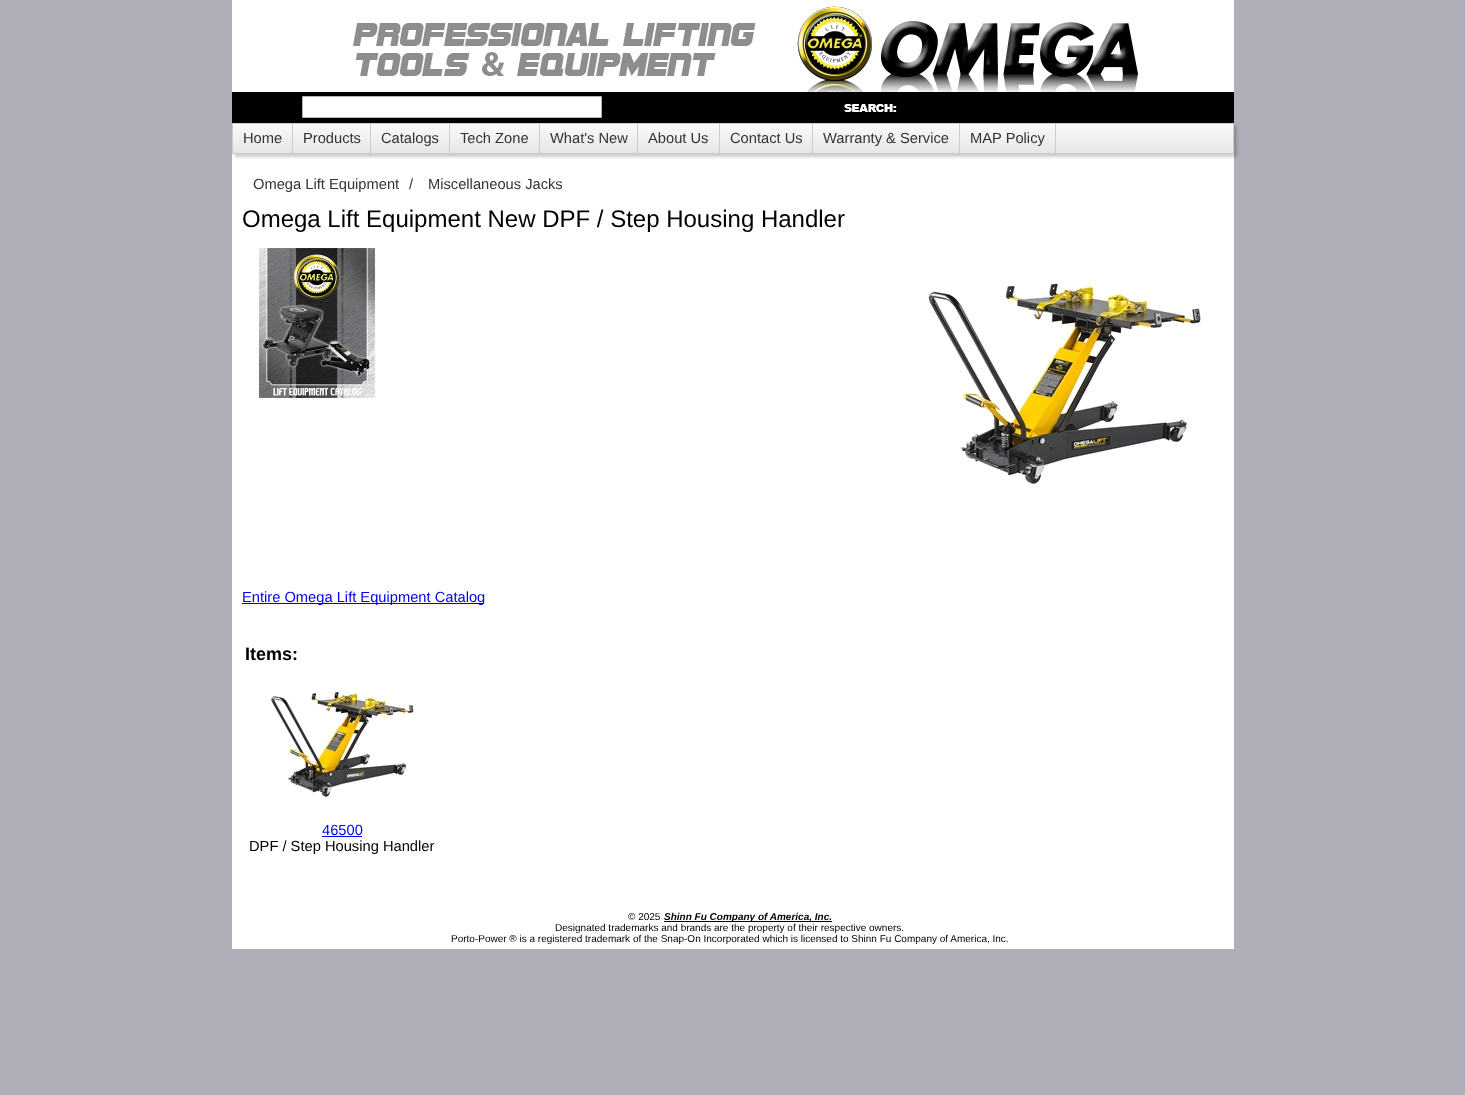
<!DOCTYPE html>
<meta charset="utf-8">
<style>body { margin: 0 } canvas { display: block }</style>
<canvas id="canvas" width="1465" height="1095"></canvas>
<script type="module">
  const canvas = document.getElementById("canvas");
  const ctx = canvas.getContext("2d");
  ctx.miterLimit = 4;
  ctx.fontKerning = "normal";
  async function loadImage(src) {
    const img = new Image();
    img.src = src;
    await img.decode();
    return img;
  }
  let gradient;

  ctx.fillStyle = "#afafba";
  ctx.fillRect(0, 0, 1465, 1095);
  ctx.fillStyle = "#ffffff";
  ctx.fillRect(232, 0, 1002, 949);
  ctx.drawImage(await loadImage("img1.png"), 232, 6, 1002, 117);
  ctx.beginPath();
  ctx.rect(302.5, 96.5, 299, 21);
  ctx.fill();
  ctx.strokeStyle = "#b3b3b3";
  ctx.stroke();
  ctx.fillStyle = "rgba(0, 0, 0, 0.2)";
  ctx.filter = "blur(1.5px)";
  ctx.beginPath();
  ctx.rect(235, 126, 1002, 31);
  ctx.fill();
  ctx.filter = "none";
  gradient = ctx.createLinearGradient(733, 124, 733, 153);
  gradient.addColorStop(0, "#fafafa");
  gradient.addColorStop(1, "#e6e6e6");
  ctx.fillStyle = gradient;
  ctx.fillRect(233, 124, 1000, 29);
  ctx.strokeStyle = "#cdcdcd";
  ctx.strokeRect(232.5, 123.5, 1001, 30);
  ctx.fillStyle = "#cdcdcd";
  ctx.fillRect(292, 124, 1, 29);
  ctx.font = "14.7px Liberation Sans";
  ctx.fillStyle = "#333333";
  ctx.fillText("Home", 243, 143);
  ctx.fillStyle = "#cdcdcd";
  ctx.fillRect(370, 124, 1, 29);
  ctx.fillStyle = "#333333";
  ctx.fillText("Products", 303, 143);
  ctx.fillStyle = "#cdcdcd";
  ctx.fillRect(449, 124, 1, 29);
  ctx.fillStyle = "#333333";
  ctx.fillText("Catalogs", 381, 143);
  ctx.fillStyle = "#cdcdcd";
  ctx.fillRect(539, 124, 1, 29);
  ctx.fillStyle = "#333333";
  ctx.fillText("Tech Zone", 460, 143);
  ctx.fillStyle = "#cdcdcd";
  ctx.fillRect(637, 124, 1, 29);
  ctx.fillStyle = "#333333";
  ctx.fillText("What's New", 550, 143);
  ctx.fillStyle = "#cdcdcd";
  ctx.fillRect(719, 124, 1, 29);
  ctx.fillStyle = "#333333";
  ctx.fillText("About Us", 648, 143);
  ctx.fillStyle = "#cdcdcd";
  ctx.fillRect(812, 124, 1, 29);
  ctx.fillStyle = "#333333";
  ctx.fillText("Contact Us", 730, 143);
  ctx.fillStyle = "#cdcdcd";
  ctx.fillRect(959, 124, 1, 29);
  ctx.fillStyle = "#333333";
  ctx.fillText("Warranty & Service", 823, 143);
  ctx.fillStyle = "#cdcdcd";
  ctx.fillRect(1055, 124, 1, 29);
  ctx.fillStyle = "#333333";
  ctx.fillText("MAP Policy", 970, 143);
  ctx.fillText("Omega Lift Equipment", 253, 189);
  ctx.fillText("/", 409, 189);
  ctx.fillText("Miscellaneous Jacks", 428, 189);
  ctx.font = "24px Liberation Sans";
  ctx.fillStyle = "#000000";
  ctx.fillText("Omega Lift Equipment New DPF / Step Housing Handler", 242, 227);
  ctx.drawImage(await loadImage("img2.png"), 258, 248, 118, 150);
  ctx.drawImage(await loadImage("img3.png"), 928, 283, 273, 201);
  ctx.fillStyle = "#0000ee";
  ctx.fillRect(242, 603, 242, 1);
  ctx.font = "14.7px Liberation Sans";
  ctx.fillText("Entire Omega Lift Equipment Catalog", 242, 602);
  ctx.font = "bold 18px Liberation Sans";
  ctx.fillStyle = "#000000";
  ctx.fillText("Items:", 245, 660);
  ctx.drawImage(await loadImage("img4.png"), 271, 692, 143, 105);
  ctx.font = "14.7px Liberation Sans";
  ctx.fillStyle = "#0000ee";
  ctx.fillText("46500", 322, 835);
  ctx.fillRect(322, 836, 40, 1);
  ctx.fillStyle = "#000000";
  ctx.fillText("DPF / Step Housing Handler", 249, 851);
  ctx.font = "10px Liberation Sans";
  ctx.fillText("© 2025", 628, 920);
  ctx.fillRect(664, 921, 168, 1);
  ctx.font = "italic bold 10px Liberation Sans";
  ctx.fillText("Shinn Fu Company of America, Inc.", 664, 920);
  ctx.font = "10px Liberation Sans";
  ctx.fillText("Designated trademarks and brands are the property of their respective owners.", 555, 931);
  ctx.fillText("Porto-Power ® is a registered trademark of the Snap-On Incorporated which is licensed to Shinn Fu Company of America, Inc.", 451, 942);
</script>
